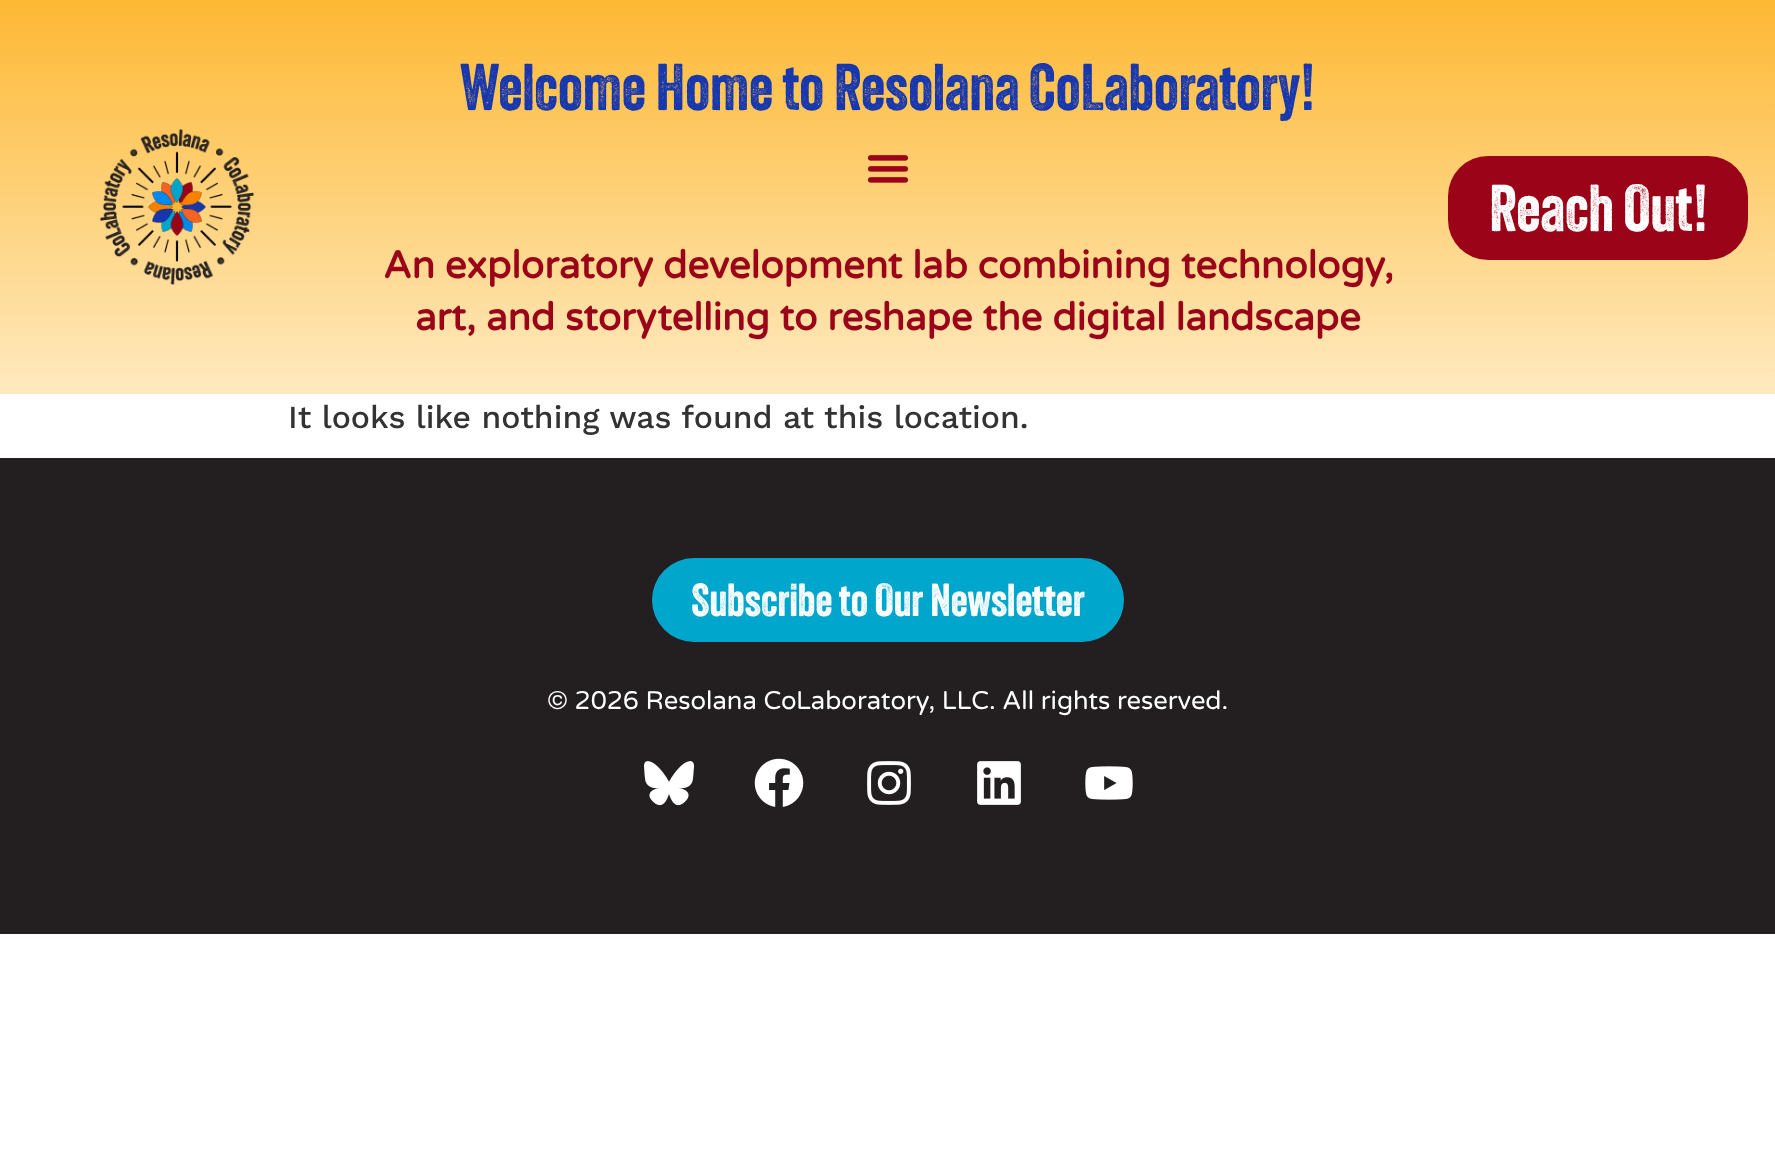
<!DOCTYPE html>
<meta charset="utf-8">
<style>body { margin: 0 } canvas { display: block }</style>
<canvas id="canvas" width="1775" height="1169"></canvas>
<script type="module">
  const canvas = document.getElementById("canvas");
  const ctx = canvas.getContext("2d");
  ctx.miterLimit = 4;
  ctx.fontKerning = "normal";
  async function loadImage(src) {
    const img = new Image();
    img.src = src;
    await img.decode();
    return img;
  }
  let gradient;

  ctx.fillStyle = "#ffffff";
  ctx.fillRect(0, 0, 1775, 1169);
  gradient = ctx.createLinearGradient(888, 0, 888, 394);
  gradient.addColorStop(0, "#fdb833");
  gradient.addColorStop(1, "#ffeac0");
  ctx.fillStyle = gradient;
  ctx.fillRect(0, 0, 1775, 394);
  ctx.drawImage(await loadImage("img1.png"), 100, 129, 154, 156);
  ctx.font = "64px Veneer";
  ctx.fillStyle = "#1737af";
  ctx.fillText("Welcome Home to Resolana CoLaboratory!", 460, 110);
  ctx.drawImage(await loadImage("img2.png"), 867, 155, 42, 28);
  ctx.font = "bold 38.4px Varela Round";
  ctx.fillStyle = "#9b0418";
  ctx.fillText("An exploratory development lab combining technology,", 383, 278);
  ctx.fillText("art, and storytelling to reshape the digital landscape", 415, 330);
  ctx.beginPath();
  ctx.roundRect(1448, 156, 300, 104, 40);
  ctx.fill();
  ctx.font = "64px Veneer";
  ctx.fillStyle = "#ffffff";
  ctx.fillText("Reach Out!", 1489, 231);
  ctx.font = "500 32px Work Sans";
  ctx.fillStyle = "#333333";
  ctx.fillText("It looks like nothing was found at this location.", 288, 428);
  ctx.fillStyle = "#231f20";
  ctx.fillRect(0, 458, 1775, 476);
  ctx.fillStyle = "#01a6cd";
  ctx.beginPath();
  ctx.roundRect(652, 558, 472, 84, 42);
  ctx.fill();
  ctx.font = "44.75px Veneer";
  ctx.fillStyle = "#ffffff";
  ctx.fillText("Subscribe to Our Newsletter", 691, 616);
  ctx.font = "25.6px Varela Round";
  ctx.fillText("© 2026 Resolana CoLaboratory, LLC. All rights reserved.", 547, 709);
  ctx.drawImage(await loadImage("img3.png"), 644, 761, 50, 45);
  ctx.drawImage(await loadImage("img4.png"), 754, 758, 50, 49);
  ctx.drawImage(await loadImage("img5.png"), 867, 761, 44, 44);
  ctx.drawImage(await loadImage("img6.png"), 977, 761, 44, 44);
  ctx.drawImage(await loadImage("img7.png"), 1085, 766, 48, 34);
</script>
